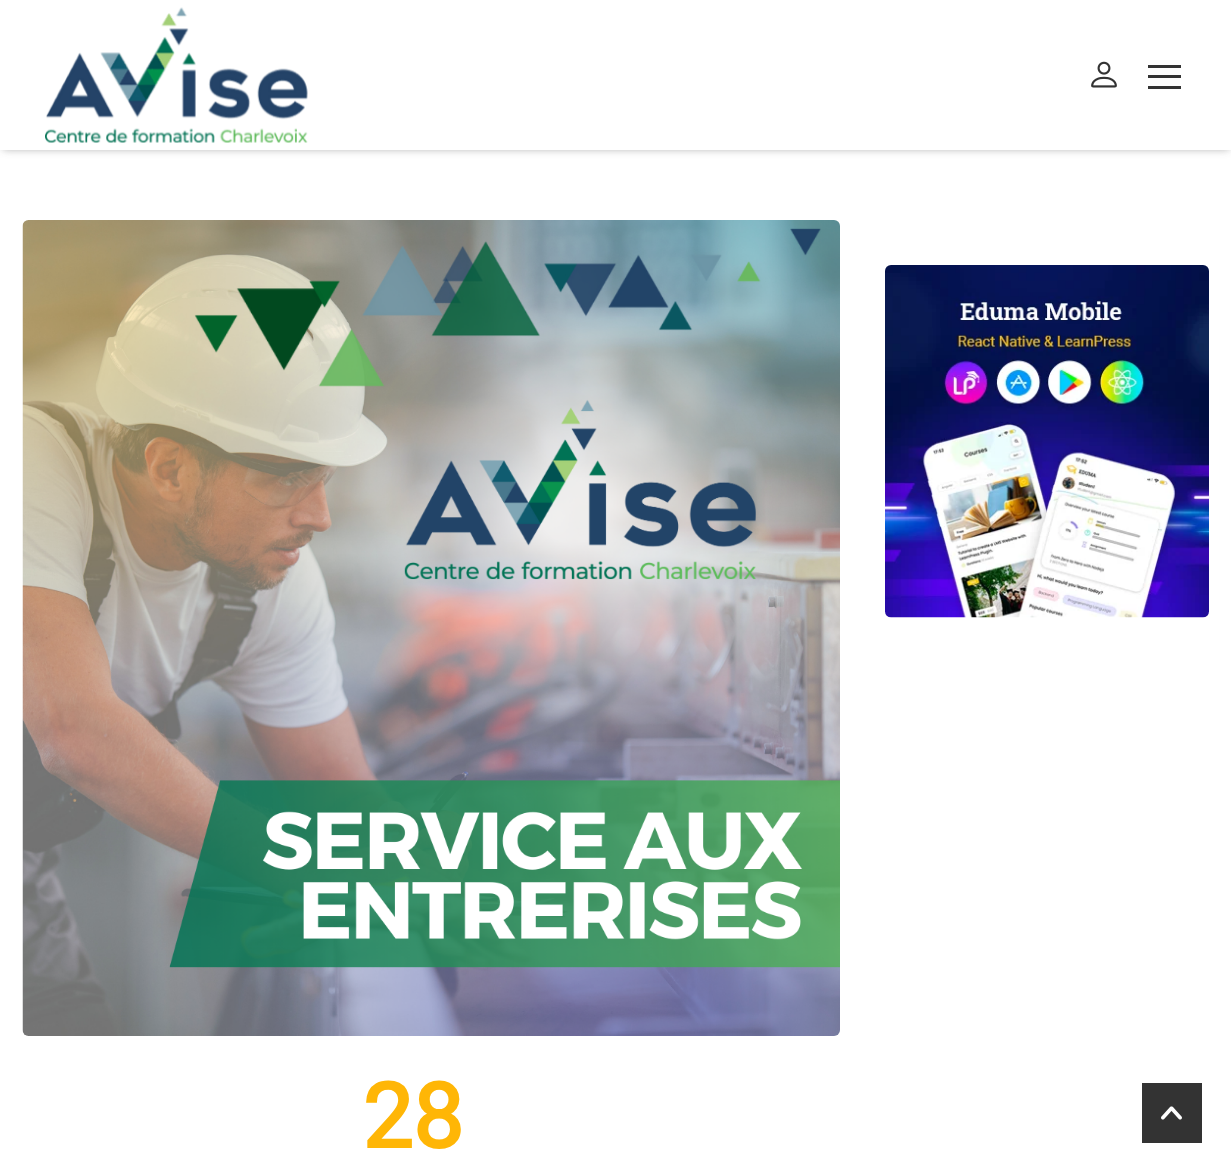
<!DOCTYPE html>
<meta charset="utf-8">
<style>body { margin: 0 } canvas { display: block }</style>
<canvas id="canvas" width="1231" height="1165"></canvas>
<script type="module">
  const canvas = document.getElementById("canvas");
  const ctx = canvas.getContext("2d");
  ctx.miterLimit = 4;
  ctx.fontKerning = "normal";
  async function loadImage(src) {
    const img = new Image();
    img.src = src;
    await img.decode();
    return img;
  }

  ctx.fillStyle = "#ffffff";
  ctx.fillRect(0, 0, 1231, 1165);
  ctx.fillStyle = "rgba(42, 42, 42, 0.4)";
  ctx.filter = "blur(4px)";
  ctx.beginPath();
  ctx.rect(3, 5, 1226, 144);
  ctx.fill();
  ctx.filter = "none";
  ctx.fillStyle = "#ffffff";
  ctx.fillRect(0, 0, 1231, 150);
  ctx.drawImage(await loadImage("img1.png"), 45, 7, 263, 136);
  ctx.drawImage(await loadImage("img2.png"), 1091, 61, 26, 27);
  ctx.fillStyle = "#333333";
  ctx.fillRect(1148, 65, 33, 3);
  ctx.fillRect(1148, 75, 33, 3);
  ctx.fillRect(1148, 86, 33, 3);
  ctx.drawImage(await loadImage("img3.png"), 885, 265, 324, 353);
  ctx.drawImage(await loadImage("img4.png"), 22, 220, 818, 816);
  ctx.font = "bold 90px Roboto";
  ctx.fillStyle = "#ffb606";
  ctx.fillText("28", 362, 1148);
  ctx.fillStyle = "#333333";
  ctx.fillRect(1142, 1083, 60, 60);
  ctx.drawImage(await loadImage("img5.png"), 1161, 1106, 21, 14);
</script>
